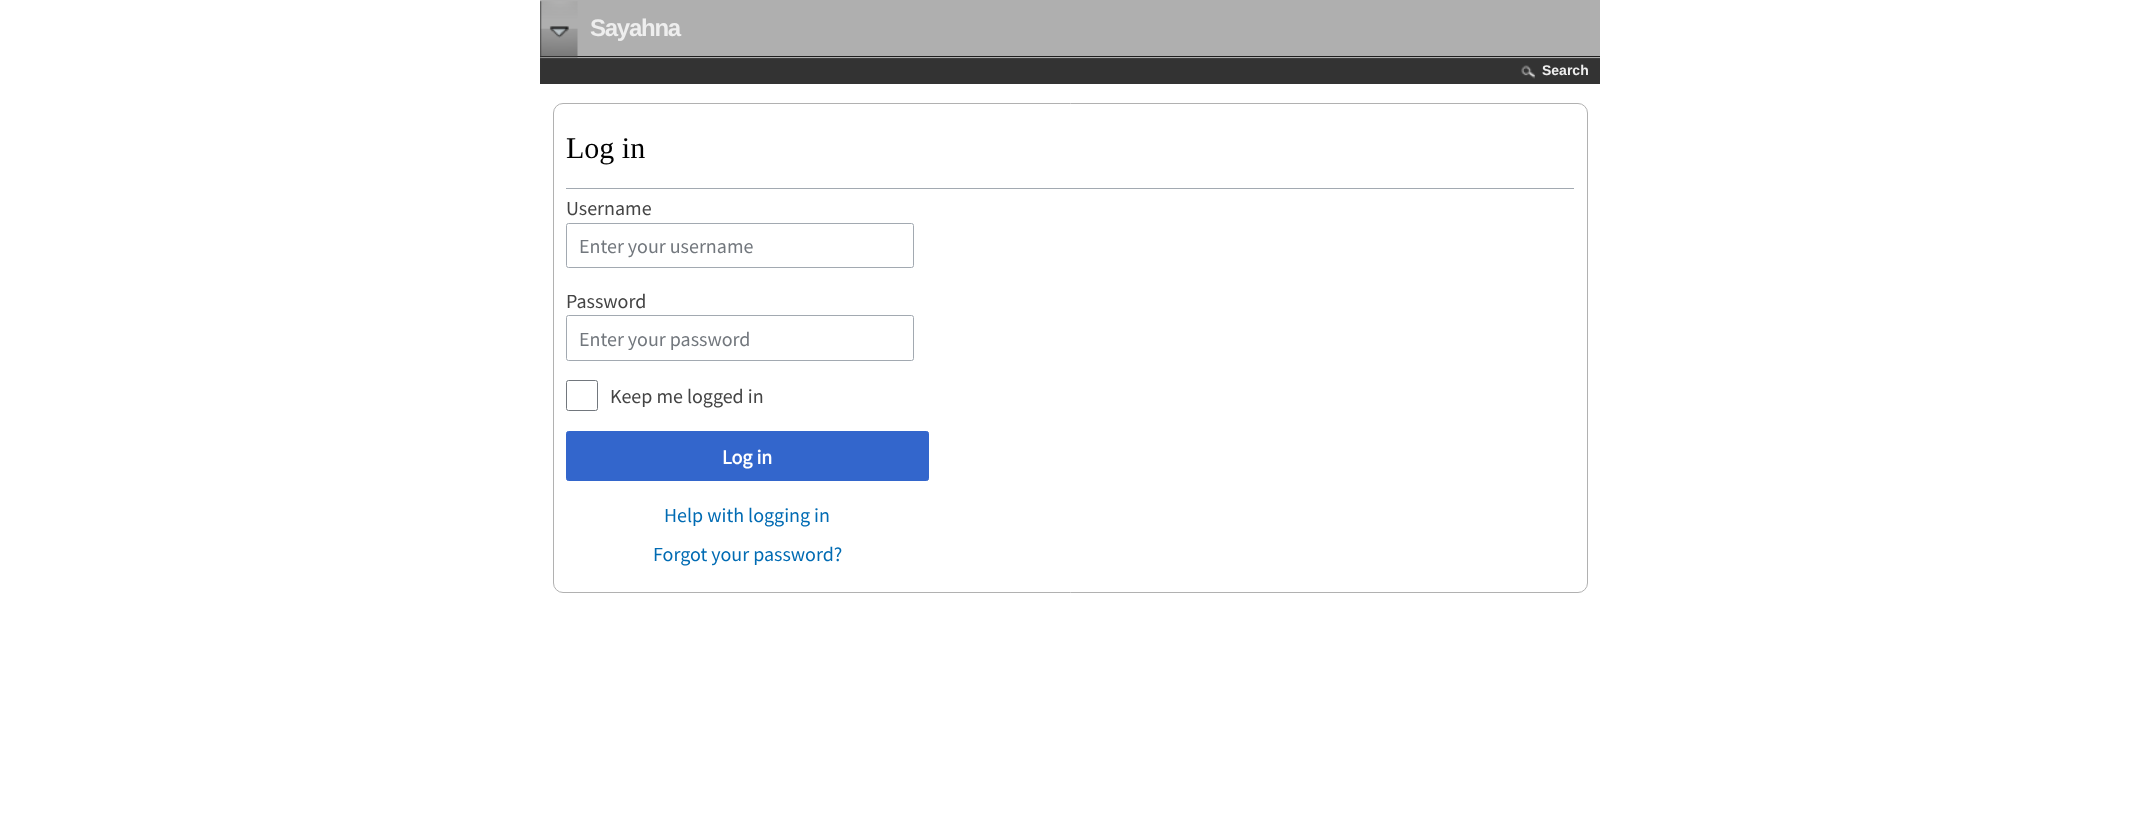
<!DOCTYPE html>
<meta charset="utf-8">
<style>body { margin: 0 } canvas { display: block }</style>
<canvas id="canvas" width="2139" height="834"></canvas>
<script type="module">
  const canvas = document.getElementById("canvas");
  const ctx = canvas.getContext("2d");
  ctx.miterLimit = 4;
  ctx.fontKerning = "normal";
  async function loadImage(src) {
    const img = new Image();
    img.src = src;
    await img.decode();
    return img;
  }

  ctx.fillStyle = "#ffffff";
  ctx.fillRect(0, 0, 2139, 834);
  ctx.fillStyle = "#afafaf";
  ctx.fillRect(540, 0, 1060, 58);
  ctx.fillStyle = "#1e1e1e";
  ctx.fillRect(540, 56, 1060, 1);
  ctx.drawImage(await loadImage("img1.png"), 540, 1, 38, 57);
  ctx.letterSpacing = "-1.25px";
  ctx.font = "bold 24px Liberation Sans";
  ctx.fillStyle = "#eeeeee";
  ctx.fillText("Sayahna", 590, 36);
  ctx.fillStyle = "#333333";
  ctx.fillRect(540, 59, 1060, 25);
  ctx.fillStyle = "#3e3e3e";
  ctx.fillRect(540, 58, 1060, 1);
  ctx.drawImage(await loadImage("img2.png"), 1521, 65, 14, 14);
  ctx.letterSpacing = "0px";
  ctx.font = "bold 14px Liberation Sans";
  ctx.fillStyle = "#eeeeee";
  ctx.fillText("Search", 1542, 75);
  ctx.beginPath();
  ctx.roundRect(553.5, 103.5, 1034, 489, 9.5);
  ctx.strokeStyle = "#b1b1b1";
  ctx.stroke();
  ctx.font = "30px Liberation Serif";
  ctx.fillStyle = "#000000";
  ctx.fillText("Log in", 566, 158);
  ctx.fillStyle = "#a2a9b1";
  ctx.fillRect(566, 188, 1008, 1);
  ctx.font = "20px Source Sans Pro";
  ctx.fillStyle = "#444444";
  ctx.fillText("Username", 566, 215);
  ctx.beginPath();
  ctx.roundRect(566.5, 223.5, 347, 44, 2);
  ctx.strokeStyle = "#a2a9b1";
  ctx.stroke();
  ctx.fillStyle = "#72777d";
  ctx.fillText("Enter your username", 579, 253);
  ctx.fillStyle = "#444444";
  ctx.fillText("Password", 566, 308);
  ctx.beginPath();
  ctx.roundRect(566.5, 315.5, 347, 45, 2);
  ctx.stroke();
  ctx.save();
  ctx.beginPath();
  ctx.rect(579, 325, 322, 25);
  ctx.clip();
  ctx.fillStyle = "#72777d";
  ctx.fillText("Enter your password", 579, 346);
  ctx.restore();
  ctx.beginPath();
  ctx.roundRect(566.5, 380.5, 31, 30, 2);
  ctx.strokeStyle = "#72777d";
  ctx.stroke();
  ctx.fillText("Keep me logged in", 610, 403);
  ctx.fillStyle = "#3366cc";
  ctx.beginPath();
  ctx.roundRect(566.5, 431.5, 362, 49, 2);
  ctx.fill();
  ctx.strokeStyle = "#3366cc";
  ctx.stroke();
  ctx.font = "bold 20px Source Sans Pro";
  ctx.fillStyle = "#ffffff";
  ctx.fillText("Log in", 722, 464);
  ctx.font = "20px Source Sans Pro";
  ctx.fillStyle = "#006bb3";
  ctx.fillText("Help with logging in", 664, 522);
  ctx.fillText("Forgot your password?", 653, 561);
</script>
